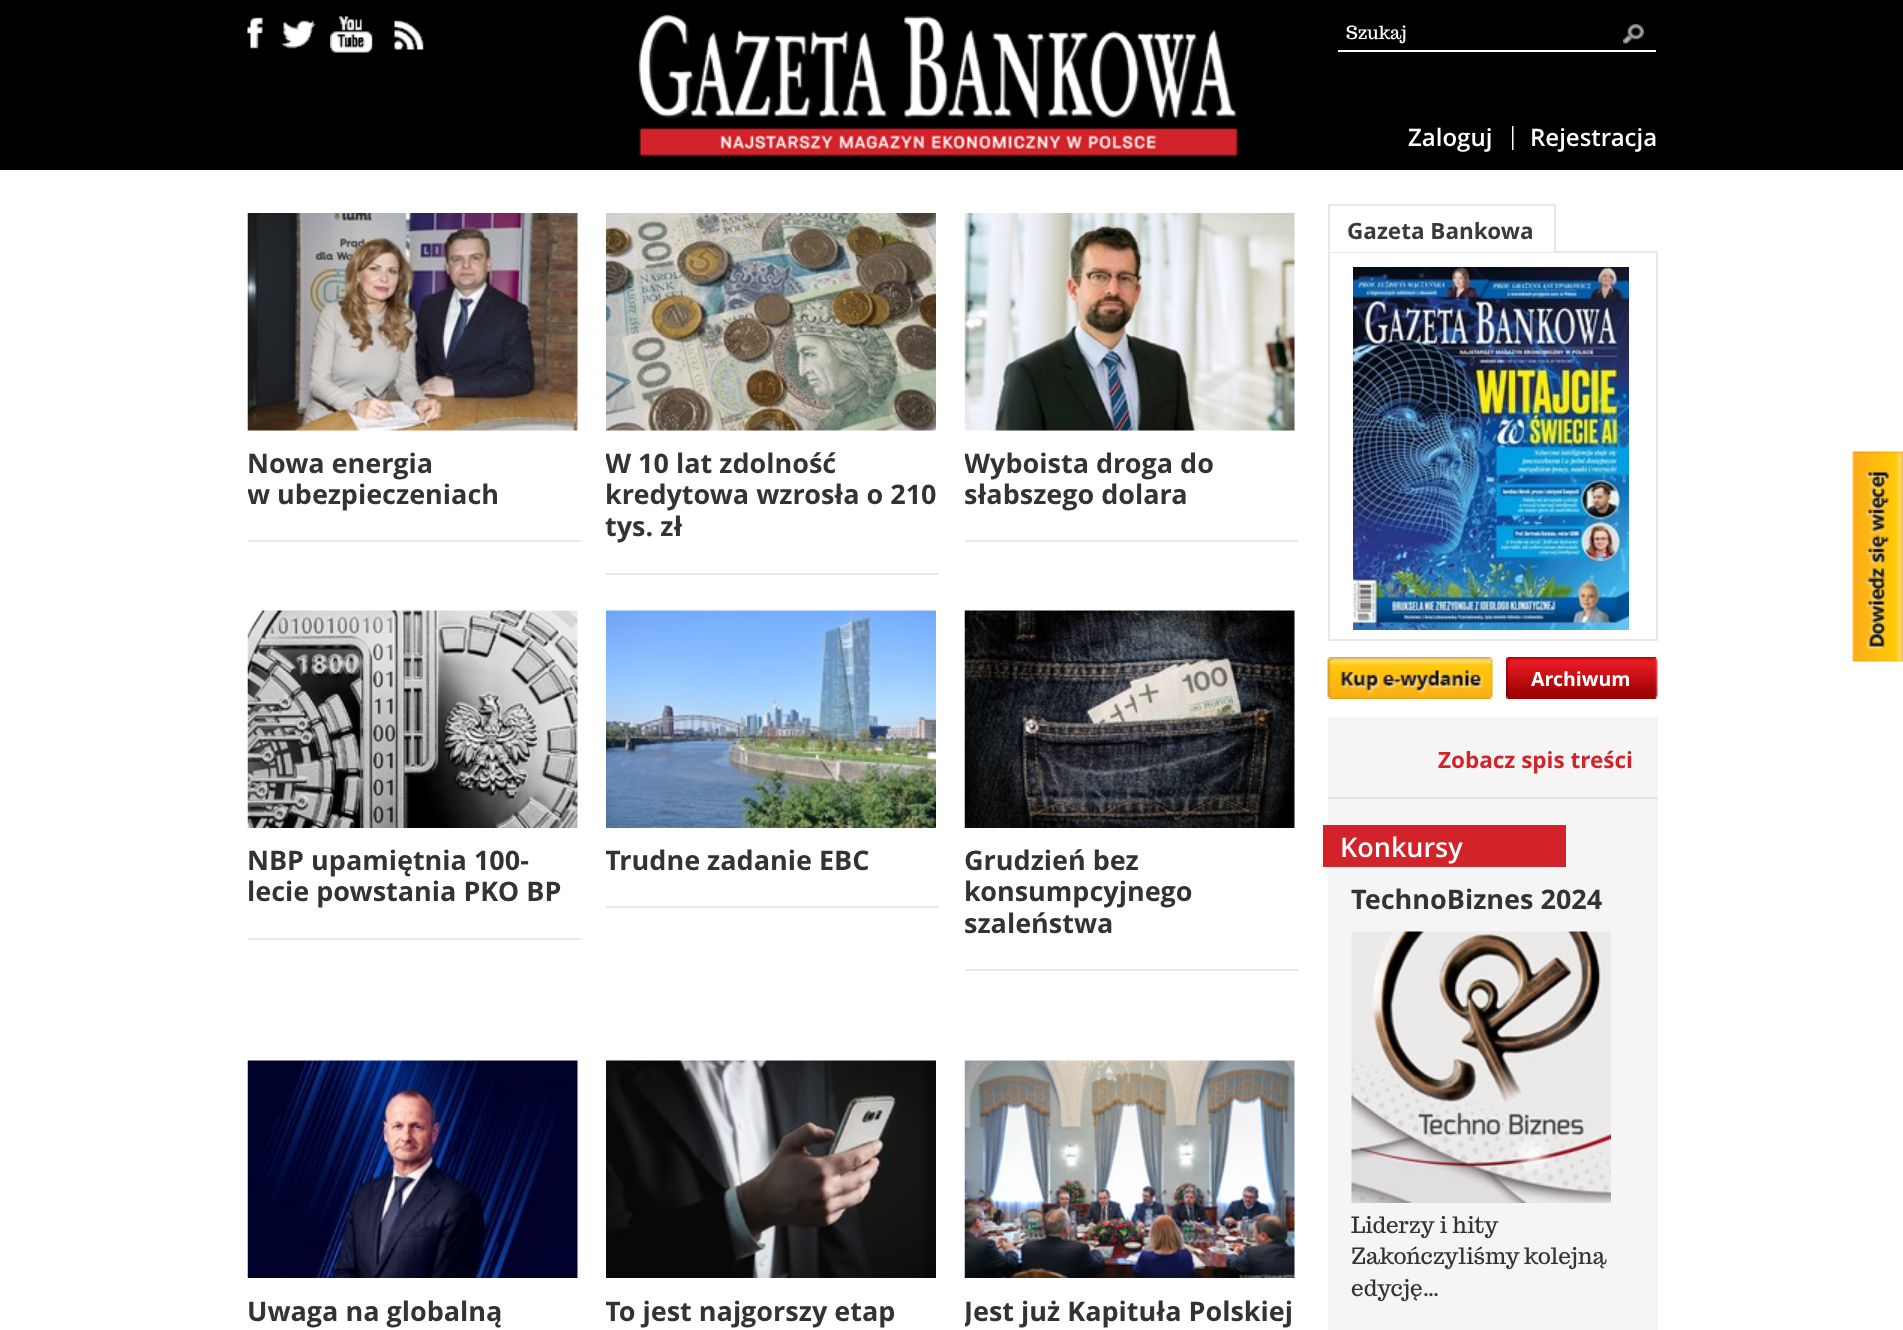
<!DOCTYPE html>
<meta charset="utf-8">
<style>body { margin: 0 } canvas { display: block }</style>
<canvas id="canvas" width="1903" height="1330"></canvas>
<script type="module">
  const canvas = document.getElementById("canvas");
  const ctx = canvas.getContext("2d");
  ctx.miterLimit = 4;
  ctx.fontKerning = "normal";
  async function loadImage(src) {
    const img = new Image();
    img.src = src;
    await img.decode();
    return img;
  }

  ctx.fillStyle = "#ffffff";
  ctx.fillRect(0, 0, 1903, 1330);
  ctx.fillStyle = "#000000";
  ctx.fillRect(0, 0, 1903, 170);
  ctx.drawImage(await loadImage("img1.png"), 247, 17, 16, 32);
  ctx.drawImage(await loadImage("img2.png"), 281, 20, 35, 29);
  ctx.drawImage(await loadImage("img3.png"), 330, 16, 43, 37);
  ctx.drawImage(await loadImage("img4.png"), 394, 20, 30, 30);
  ctx.drawImage(await loadImage("img5.png"), 638, 14, 600, 143);
  ctx.fillStyle = "#ffffff";
  ctx.fillRect(1338, 50, 318, 2);
  ctx.font = "18px Trocchi";
  ctx.fillText("Szukaj", 1346, 39);
  ctx.drawImage(await loadImage("img6.png"), 1623, 24, 21, 20);
  ctx.font = "600 24px Open Sans";
  ctx.fillText("Zaloguj", 1408, 146);
  ctx.drawImage(await loadImage("img7.png"), 1512, 126, 2, 24);
  ctx.fillText("Rejestracja", 1530, 146);
  ctx.fillStyle = "#e8e8e8";
  ctx.fillRect(248, 540, 333, 2);
  ctx.drawImage(await loadImage("img8.png"), 247, 213, 331, 218);
  ctx.font = "bold 27px Open Sans";
  ctx.fillStyle = "#333333";
  ctx.fillText("Nowa energia", 247, 473);
  ctx.save();
  ctx.beginPath();
  ctx.rect(248, 204, 333, 336);
  ctx.clip();
  ctx.fillText("w ubezpieczeniach", 247, 504);
  ctx.restore();
  ctx.fillStyle = "#e8e8e8";
  ctx.fillRect(606, 573, 333, 2);
  ctx.drawImage(await loadImage("img9.png"), 606, 213, 330, 218);
  ctx.save();
  ctx.beginPath();
  ctx.rect(606, 204, 333, 369);
  ctx.clip();
  ctx.fillStyle = "#333333";
  ctx.fillText("W 10 lat zdolność", 605, 473);
  ctx.restore();
  ctx.fillStyle = "#333333";
  ctx.fillText("kredytowa wzrosła o 210", 605, 504);
  ctx.fillText("tys. zł", 605, 536);
  ctx.fillStyle = "#e8e8e8";
  ctx.fillRect(965, 540, 333, 2);
  ctx.drawImage(await loadImage("img10.png"), 964, 213, 331, 218);
  ctx.save();
  ctx.beginPath();
  ctx.rect(965, 204, 333, 336);
  ctx.clip();
  ctx.fillStyle = "#333333";
  ctx.fillText("Wyboista droga do", 964, 473);
  ctx.restore();
  ctx.fillStyle = "#333333";
  ctx.fillText("słabszego dolara", 964, 504);
  ctx.fillStyle = "#e8e8e8";
  ctx.fillRect(248, 938, 333, 2);
  ctx.drawImage(await loadImage("img11.png"), 247, 610, 331, 218);
  ctx.fillStyle = "#333333";
  ctx.fillText("NBP upamiętnia 100-", 247, 870);
  ctx.fillText("lecie powstania PKO BP", 247, 901);
  ctx.fillStyle = "#e8e8e8";
  ctx.fillRect(606, 906, 333, 2);
  ctx.drawImage(await loadImage("img12.png"), 606, 610, 330, 218);
  ctx.save();
  ctx.beginPath();
  ctx.rect(606, 602, 333, 304);
  ctx.clip();
  ctx.fillStyle = "#333333";
  ctx.fillText("Trudne zadanie EBC", 605, 870);
  ctx.restore();
  ctx.fillRect(965, 969, 333, 2);
  ctx.drawImage(await loadImage("img13.png"), 964, 610, 331, 218);
  ctx.fillStyle = "#333333";
  ctx.fillText("Grudzień bez", 964, 870);
  ctx.fillText("konsumpcyjnego", 964, 901);
  ctx.fillText("szaleństwa", 964, 933);
  ctx.drawImage(await loadImage("img14.png"), 247, 1060, 331, 218);
  ctx.fillText("Uwaga na globalną", 247, 1321);
  ctx.drawImage(await loadImage("img15.png"), 606, 1060, 330, 218);
  ctx.save();
  ctx.beginPath();
  ctx.rect(606, 1052, 333, 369);
  ctx.clip();
  ctx.fillText("To jest najgorszy etap", 605, 1321);
  ctx.restore();
  ctx.drawImage(await loadImage("img16.png"), 964, 1060, 331, 218);
  ctx.save();
  ctx.beginPath();
  ctx.rect(965, 1052, 333, 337);
  ctx.clip();
  ctx.fillText("Jest już Kapituła Polskiej", 964, 1321);
  ctx.restore();
  ctx.strokeStyle = "#e8e8e8";
  ctx.lineWidth = 2;
  ctx.strokeRect(1329, 252, 328, 388);
  ctx.fillStyle = "#ffffff";
  ctx.fillRect(1330, 251, 224, 1);
  ctx.fillStyle = "#e8e8e8";
  ctx.fillRect(1328, 204, 228, 2);
  ctx.fillRect(1554, 204, 2, 48);
  ctx.fillRect(1328, 204, 2, 48);
  ctx.font = "bold 22.5px Open Sans";
  ctx.fillStyle = "#3a3a3a";
  ctx.fillText("Gazeta Bankowa", 1347, 239);
  ctx.drawImage(await loadImage("img17.png"), 1353, 267, 276, 363);
  ctx.drawImage(await loadImage("img18.png"), 1327, 657, 166, 42);
  ctx.drawImage(await loadImage("img19.png"), 1506, 657, 152, 42);
  ctx.font = "bold 19.5px Open Sans";
  ctx.fillStyle = "#ffffff";
  ctx.fillText("Archiwum", 1531, 686);
  ctx.fillStyle = "#f5f5f5";
  ctx.fillRect(1328, 717, 330, 613);
  ctx.fillStyle = "#e4e4e4";
  ctx.fillRect(1328, 797, 330, 2);
  ctx.font = "bold 22.5px Open Sans";
  ctx.fillStyle = "#d2232a";
  ctx.fillText("Zobacz spis treści", 1438, 768);
  ctx.fillRect(1323, 825, 243, 42);
  ctx.font = "600 27px Open Sans";
  ctx.fillStyle = "#ffffff";
  ctx.fillText("Konkursy", 1340, 857);
  ctx.font = "bold 27px Open Sans";
  ctx.fillStyle = "#333333";
  ctx.fillText("TechnoBiznes 2024", 1351, 909);
  ctx.drawImage(await loadImage("img20.png"), 1351, 931, 260, 272);
  ctx.font = "22.5px Trocchi";
  ctx.fillText("Liderzy i hity", 1351, 1233);
  ctx.wordSpacing = "-1px";
  ctx.fillText("Zakończyliśmy kolejną", 1351, 1264);
  ctx.wordSpacing = "0px";
  ctx.fillText("edycję...", 1351, 1296);
  ctx.drawImage(await loadImage("img21.png"), 1852, 451, 51, 211);
</script>
